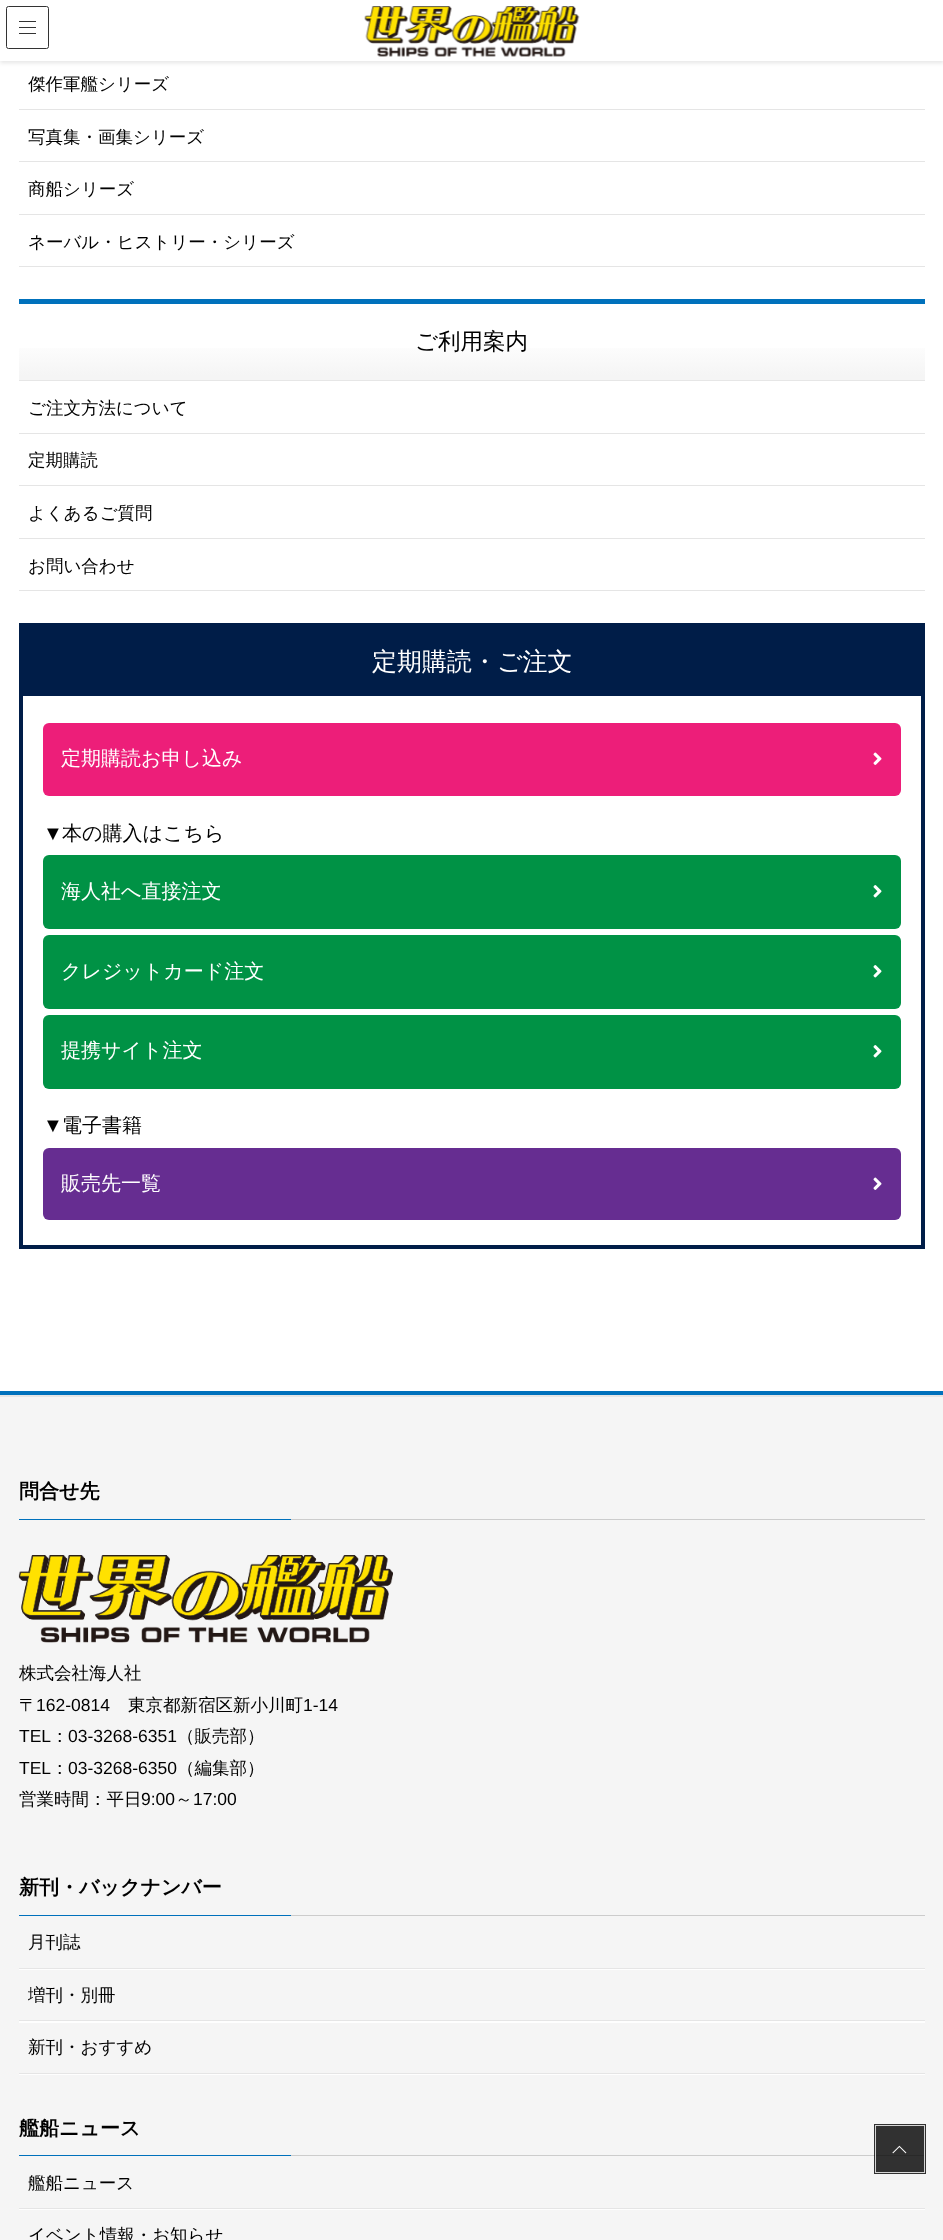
<!DOCTYPE html>
<meta charset="utf-8">
<style>body { margin: 0 } canvas { display: block }</style>
<canvas id="canvas" width="943" height="2240"></canvas>
<script type="module">
  const canvas = document.getElementById("canvas");
  const ctx = canvas.getContext("2d");
  ctx.miterLimit = 4;
  ctx.fontKerning = "normal";
  async function loadImage(src) {
    const img = new Image();
    img.src = src;
    await img.decode();
    return img;
  }
  let gradient;

  ctx.fillStyle = "#ffffff";
  ctx.fillRect(0, 0, 943, 2240);
  ctx.fillStyle = "rgba(0, 0, 0, 0.1)";
  ctx.filter = "blur(2px)";
  ctx.beginPath();
  ctx.rect(0, 1, 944, 62);
  ctx.fill();
  ctx.filter = "none";
  ctx.fillStyle = "#ffffff";
  ctx.fillRect(0, 0, 943, 61);
  ctx.drawImage(await loadImage("img1.png"), 364, 6, 216, 51);
  ctx.fillStyle = "#333333";
  ctx.fillRect(19, 21, 17, 1);
  ctx.fillRect(19, 27, 17, 1);
  ctx.fillRect(19, 33, 17, 1);
  ctx.beginPath();
  ctx.roundRect(6.5, 6.5, 42, 42, 2);
  ctx.strokeStyle = "#333333";
  ctx.stroke();
  ctx.fillStyle = "#e5e5e5";
  ctx.fillRect(19, 109, 906, 1);
  ctx.font = "500 17.5px WenQuanYi Zen Hei";
  ctx.fillStyle = "#000000";
  ctx.fillText("傑作軍艦シリーズ", 28, 90);
  ctx.fillStyle = "#e5e5e5";
  ctx.fillRect(19, 161, 906, 1);
  ctx.fillStyle = "#000000";
  ctx.fillText("写真集・画集シリーズ", 28, 143);
  ctx.fillStyle = "#e5e5e5";
  ctx.fillRect(19, 214, 906, 1);
  ctx.fillStyle = "#000000";
  ctx.fillText("商船シリーズ", 28, 195);
  ctx.fillStyle = "#e5e5e5";
  ctx.fillRect(19, 266, 906, 1);
  ctx.fillStyle = "#000000";
  ctx.fillText("ネーバル・ヒストリー・シリーズ", 28, 248);
  gradient = ctx.createLinearGradient(472, 304, 472, 380);
  gradient.addColorStop(0.46, "#ffffff");
  gradient.addColorStop(0.94, "#f5f5f5");
  ctx.fillStyle = gradient;
  ctx.fillRect(19, 348, 906, 32);
  ctx.fillStyle = "#0071bc";
  ctx.fillRect(19, 299, 906, 5);
  ctx.fillStyle = "#e6e6e6";
  ctx.fillRect(19, 380, 906, 1);
  ctx.font = "500 22.5px WenQuanYi Zen Hei";
  ctx.fillStyle = "#000000";
  ctx.fillText("ご利用案内", 415, 349);
  ctx.fillStyle = "#e5e5e5";
  ctx.fillRect(19, 433, 906, 1);
  ctx.font = "500 17.5px WenQuanYi Zen Hei";
  ctx.fillStyle = "#000000";
  ctx.fillText("ご注文方法について", 28, 414);
  ctx.fillStyle = "#e5e5e5";
  ctx.fillRect(19, 485, 906, 1);
  ctx.fillStyle = "#000000";
  ctx.fillText("定期購読", 28, 466);
  ctx.fillStyle = "#e5e5e5";
  ctx.fillRect(19, 538, 906, 1);
  ctx.fillStyle = "#000000";
  ctx.fillText("よくあるご質問", 28, 519);
  ctx.fillStyle = "#e5e5e5";
  ctx.fillRect(19, 590, 906, 1);
  ctx.fillStyle = "#000000";
  ctx.fillText("お問い合わせ", 28, 572);
  ctx.strokeStyle = "#001d48";
  ctx.lineWidth = 4;
  ctx.strokeRect(21, 625, 902, 622);
  ctx.fillStyle = "#001d48";
  ctx.fillRect(23, 627, 898, 69);
  ctx.font = "500 25px WenQuanYi Zen Hei";
  ctx.fillStyle = "#ffffff";
  ctx.fillText("定期購読・ご注文", 372, 670);
  ctx.fillStyle = "#ed1e79";
  ctx.beginPath();
  ctx.roundRect(43, 723, 858, 73, 6);
  ctx.fill();
  ctx.font = "500 20px WenQuanYi Zen Hei";
  ctx.fillStyle = "#ffffff";
  ctx.fillText("定期購読お申し込み", 61, 765);
  ctx.drawImage(await loadImage("img2.png"), 873, 752, 9, 13);
  ctx.font = "20px Liberation Sans";
  ctx.fillStyle = "#000000";
  ctx.fillText("▼", 43, 840);
  ctx.font = "500 20px WenQuanYi Zen Hei";
  ctx.fillText("本の購入はこちら", 62, 840);
  ctx.fillStyle = "#009245";
  ctx.beginPath();
  ctx.roundRect(43, 855, 858, 74, 6);
  ctx.fill();
  ctx.fillStyle = "#ffffff";
  ctx.fillText("海人社へ直接注文", 61, 898);
  ctx.drawImage(await loadImage("img3.png"), 873, 885, 9, 13);
  ctx.fillStyle = "#009245";
  ctx.beginPath();
  ctx.roundRect(43, 935, 858, 74, 6);
  ctx.fill();
  ctx.fillStyle = "#ffffff";
  ctx.fillText("クレジットカード注文", 61, 978);
  ctx.drawImage(await loadImage("img3.png"), 873, 965, 9, 13);
  ctx.fillStyle = "#009245";
  ctx.beginPath();
  ctx.roundRect(43, 1015, 858, 74, 6);
  ctx.fill();
  ctx.fillStyle = "#ffffff";
  ctx.fillText("提携サイト注文", 61, 1057);
  ctx.drawImage(await loadImage("img3.png"), 873, 1045, 9, 13);
  ctx.font = "20px Liberation Sans";
  ctx.fillStyle = "#000000";
  ctx.fillText("▼", 43, 1132);
  ctx.font = "500 20px WenQuanYi Zen Hei";
  ctx.fillText("電子書籍", 62, 1132);
  ctx.fillStyle = "#662d91";
  ctx.beginPath();
  ctx.roundRect(43, 1148, 858, 72, 6);
  ctx.fill();
  ctx.fillStyle = "#ffffff";
  ctx.fillText("販売先一覧", 61, 1190);
  ctx.drawImage(await loadImage("img4.png"), 873, 1177, 9, 13);
  ctx.fillStyle = "#f5f5f5";
  ctx.fillRect(0, 1397, 943, 843);
  ctx.fillStyle = "#0071bc";
  ctx.fillRect(0, 1391, 943, 4);
  ctx.fillStyle = "#e5e5e5";
  ctx.fillRect(0, 1395, 943, 2);
  ctx.fillStyle = "#cccccc";
  ctx.fillRect(291, 1519, 634, 1);
  ctx.font = "bold 20px WenQuanYi Zen Hei";
  ctx.fillStyle = "#000000";
  ctx.fillText("問合せ先", 19, 1498);
  ctx.fillStyle = "#0071bc";
  ctx.fillRect(19, 1519, 272, 1);
  ctx.drawImage(await loadImage("img5.png"), 18, 1555, 375, 88);
  ctx.font = "500 17.5px WenQuanYi Zen Hei";
  ctx.fillStyle = "#000000";
  ctx.fillText("株式会社海人社", 19, 1679);
  ctx.fillText("〒", 19, 1711);
  ctx.font = "17.5px Liberation Sans";
  ctx.fillText("162-0814", 36, 1711);
  ctx.font = "500 17.5px WenQuanYi Zen Hei";
  ctx.fillText("東京都新宿区新小川町", 128, 1711);
  ctx.font = "17.5px Liberation Sans";
  ctx.fillText("1-14", 303, 1711);
  ctx.fillText("TEL", 19, 1742);
  ctx.font = "500 17.5px WenQuanYi Zen Hei";
  ctx.fillText("：", 51, 1742);
  ctx.font = "17.5px Liberation Sans";
  ctx.fillText("03-3268-6351", 68, 1742);
  ctx.font = "500 17.5px WenQuanYi Zen Hei";
  ctx.fillText("（販売部）", 177, 1742);
  ctx.font = "17.5px Liberation Sans";
  ctx.fillText("TEL", 19, 1774);
  ctx.font = "500 17.5px WenQuanYi Zen Hei";
  ctx.fillText("：", 51, 1774);
  ctx.font = "17.5px Liberation Sans";
  ctx.fillText("03-3268-6350", 68, 1774);
  ctx.font = "500 17.5px WenQuanYi Zen Hei";
  ctx.fillText("（編集部）", 177, 1774);
  ctx.fillText("営業時間：平日", 19, 1805);
  ctx.font = "17.5px Liberation Sans";
  ctx.fillText("9:00", 141, 1805);
  ctx.font = "500 17.5px WenQuanYi Zen Hei";
  ctx.fillText("～", 175, 1805);
  ctx.font = "17.5px Liberation Sans";
  ctx.fillText("17:00", 193, 1805);
  ctx.fillStyle = "#cccccc";
  ctx.fillRect(291, 1915, 634, 1);
  ctx.font = "bold 20px WenQuanYi Zen Hei";
  ctx.fillStyle = "#000000";
  ctx.fillText("新刊・バックナンバー", 19, 1894);
  ctx.fillStyle = "#0071bc";
  ctx.fillRect(19, 1915, 272, 1);
  ctx.fillStyle = "#fefefe";
  ctx.fillRect(19, 1969, 906, 1);
  ctx.fillStyle = "#e5e5e5";
  ctx.fillRect(19, 1968, 906, 1);
  ctx.font = "500 17.5px WenQuanYi Zen Hei";
  ctx.fillStyle = "#000000";
  ctx.fillText("月刊誌", 28, 1948);
  ctx.fillStyle = "#fefefe";
  ctx.fillRect(19, 2021, 906, 2);
  ctx.fillStyle = "#e5e5e5";
  ctx.fillRect(19, 2020, 906, 1);
  ctx.fillStyle = "#000000";
  ctx.fillText("増刊・別冊", 28, 2001);
  ctx.fillStyle = "#fefefe";
  ctx.fillRect(19, 2074, 906, 1);
  ctx.fillStyle = "#e5e5e5";
  ctx.fillRect(19, 2073, 906, 1);
  ctx.fillStyle = "#000000";
  ctx.fillText("新刊・おすすめ", 28, 2053);
  ctx.fillStyle = "#cccccc";
  ctx.fillRect(291, 2155, 634, 1);
  ctx.font = "bold 20px WenQuanYi Zen Hei";
  ctx.fillStyle = "#000000";
  ctx.fillText("艦船ニュース", 19, 2135);
  ctx.fillStyle = "#0071bc";
  ctx.fillRect(19, 2155, 272, 1);
  ctx.fillStyle = "#fefefe";
  ctx.fillRect(19, 2209, 906, 1);
  ctx.fillStyle = "#e5e5e5";
  ctx.fillRect(19, 2208, 906, 1);
  ctx.font = "500 17.5px WenQuanYi Zen Hei";
  ctx.fillStyle = "#000000";
  ctx.fillText("艦船ニュース", 28, 2189);
  ctx.fillText("イベント情報・お知らせ", 28, 2241);
  ctx.fillStyle = "rgba(0, 0, 0, 0.8)";
  ctx.fillRect(875, 2125, 50, 48);
  ctx.drawImage(await loadImage("img6.png"), 892, 2145, 15, 9);
  ctx.strokeStyle = "rgba(255, 255, 255, 0.8)";
  ctx.lineWidth = 1;
  ctx.strokeRect(875.5, 2125.5, 49, 47);
  ctx.strokeStyle = "rgba(0, 0, 0, 0.8)";
  ctx.strokeRect(874.5, 2124.5, 51, 49);
</script>
